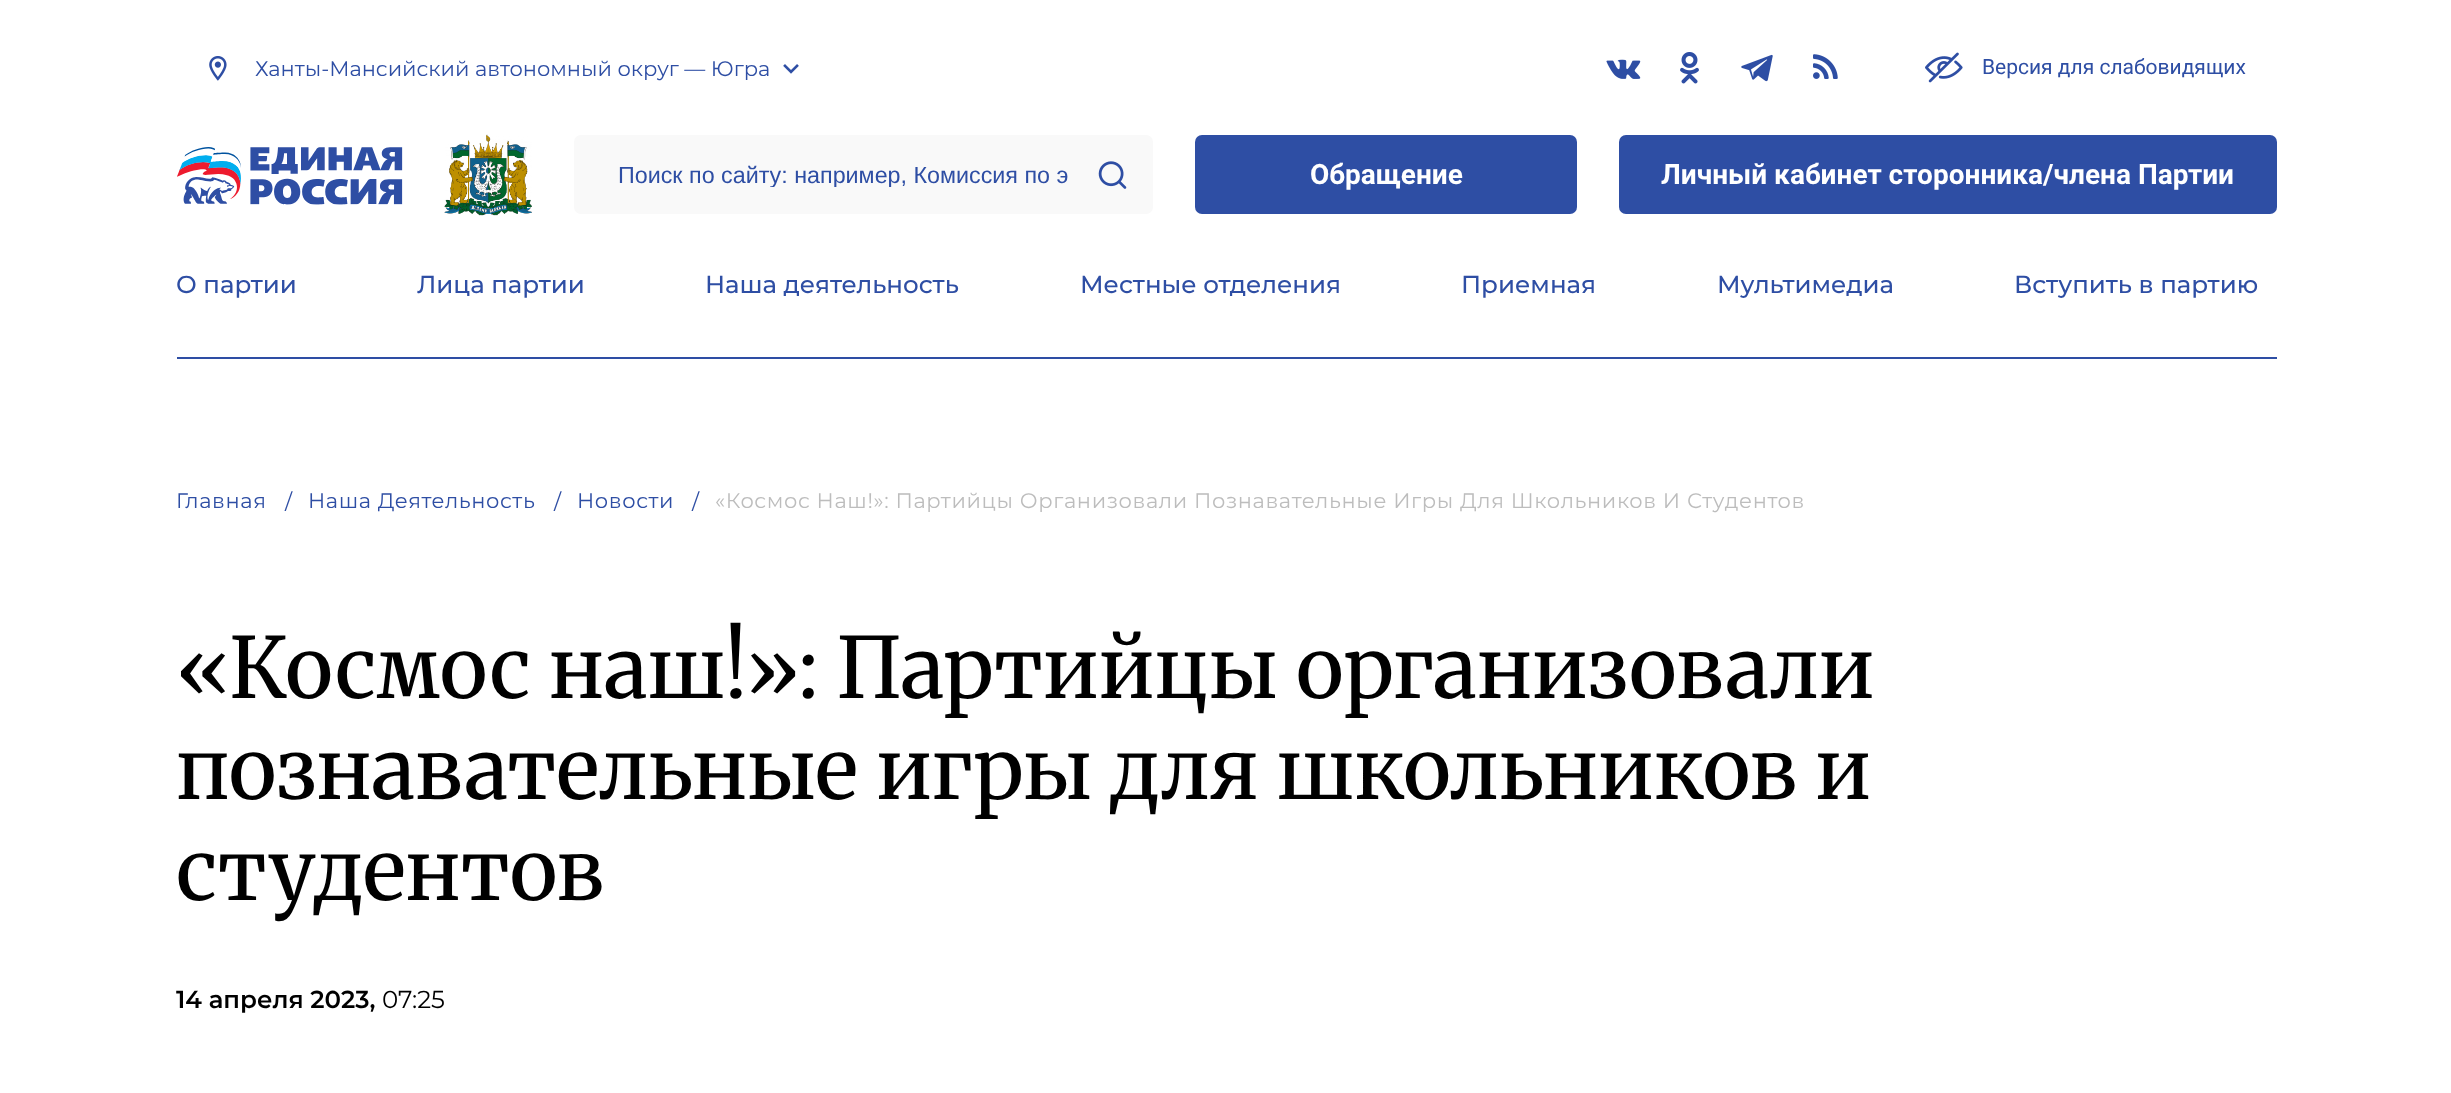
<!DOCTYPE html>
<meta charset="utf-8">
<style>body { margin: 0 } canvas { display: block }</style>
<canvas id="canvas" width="2451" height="1093"></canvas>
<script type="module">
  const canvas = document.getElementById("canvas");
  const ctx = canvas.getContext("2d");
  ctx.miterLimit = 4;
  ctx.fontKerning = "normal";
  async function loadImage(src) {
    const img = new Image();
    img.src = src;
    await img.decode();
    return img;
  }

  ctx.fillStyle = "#ffffff";
  ctx.fillRect(0, 0, 2451, 1093);
  ctx.drawImage(await loadImage("img1.png"), 209, 56, 18, 25);
  ctx.font = "21px Montserrat";
  ctx.fillStyle = "#2e4ea4";
  ctx.fillText("Ханты-Мансийский автономный округ — Югра", 255, 76);
  ctx.drawImage(await loadImage("img2.png"), 783, 64, 16, 10);
  ctx.drawImage(await loadImage("img3.png"), 1606, 59, 35, 20);
  ctx.drawImage(await loadImage("img4.png"), 1680, 52, 19, 32);
  ctx.drawImage(await loadImage("img5.png"), 1741, 54, 32, 28);
  ctx.drawImage(await loadImage("img6.png"), 1813, 54, 25, 25);
  ctx.drawImage(await loadImage("img7.png"), 1925, 52, 38, 31);
  ctx.font = "21px Roboto";
  ctx.fillText("Версия для слабовидящих", 1982, 74);
  ctx.drawImage(await loadImage("img8.png"), 177, 147, 226, 58);
  ctx.drawImage(await loadImage("img9.png"), 444, 134, 88, 82);
  ctx.fillStyle = "#f9f9f9";
  ctx.beginPath();
  ctx.roundRect(574, 135, 579, 79, 7);
  ctx.fill();
  ctx.save();
  ctx.beginPath();
  ctx.rect(618, 161, 453, 26);
  ctx.clip();
  ctx.font = "23.3px Liberation Sans";
  ctx.fillStyle = "#2e4ea4";
  ctx.fillText("Поиск по сайту: например, Комиссия по э", 618, 183);
  ctx.restore();
  ctx.drawImage(await loadImage("img10.png"), 1098, 161, 29, 28);
  ctx.fillStyle = "#2e4ea4";
  ctx.beginPath();
  ctx.roundRect(1195, 135, 382, 79, 7);
  ctx.fill();
  ctx.font = "bold 28px Roboto";
  ctx.fillStyle = "#ffffff";
  ctx.fillText("Обращение", 1310, 184);
  ctx.fillStyle = "#2e4ea4";
  ctx.beginPath();
  ctx.roundRect(1619, 135, 658, 79, 7);
  ctx.fill();
  ctx.fillStyle = "#ffffff";
  ctx.fillText("Личный кабинет сторонника/члена Партии", 1661, 184);
  ctx.fillStyle = "#2e4ea4";
  ctx.fillRect(177, 357, 2100, 2);
  ctx.font = "500 24.5px Montserrat";
  ctx.fillText("О партии", 176, 293);
  ctx.fillText("Лица партии", 417, 293);
  ctx.fillText("Наша деятельность", 705, 293);
  ctx.fillText("Местные отделения", 1080, 293);
  ctx.fillText("Приемная", 1461, 293);
  ctx.fillText("Мультимедиа", 1717, 293);
  ctx.fillText("Вступить в партию", 2014, 293);
  ctx.letterSpacing = "0.63px";
  ctx.font = "21px Montserrat";
  ctx.fillText("Главная", 176, 508);
  ctx.fillText("/", 285, 509);
  ctx.fillText("Наша Деятельность", 308, 508);
  ctx.fillText("/", 554, 509);
  ctx.fillText("Новости", 577, 508);
  ctx.fillText("/", 692, 509);
  ctx.fillStyle = "#bdbdbd";
  ctx.fillText("«Космос Наш!»: Партийцы Организовали Познавательные Игры Для Школьников И Студентов", 715, 508);
  ctx.letterSpacing = "0px";
  ctx.font = "84px Merriweather";
  ctx.fillStyle = "#000000";
  ctx.fillText("«Космос наш!»: Партийцы организовали", 176, 698);
  ctx.fillText("познавательные игры для школьников и", 176, 799);
  ctx.fillText("студентов", 176, 900);
  ctx.font = "600 24.5px Montserrat";
  ctx.fillText("14 апреля 2023,", 176, 1008);
  ctx.font = "24.5px Montserrat";
  ctx.fillText("07:25", 382, 1008);
</script>
